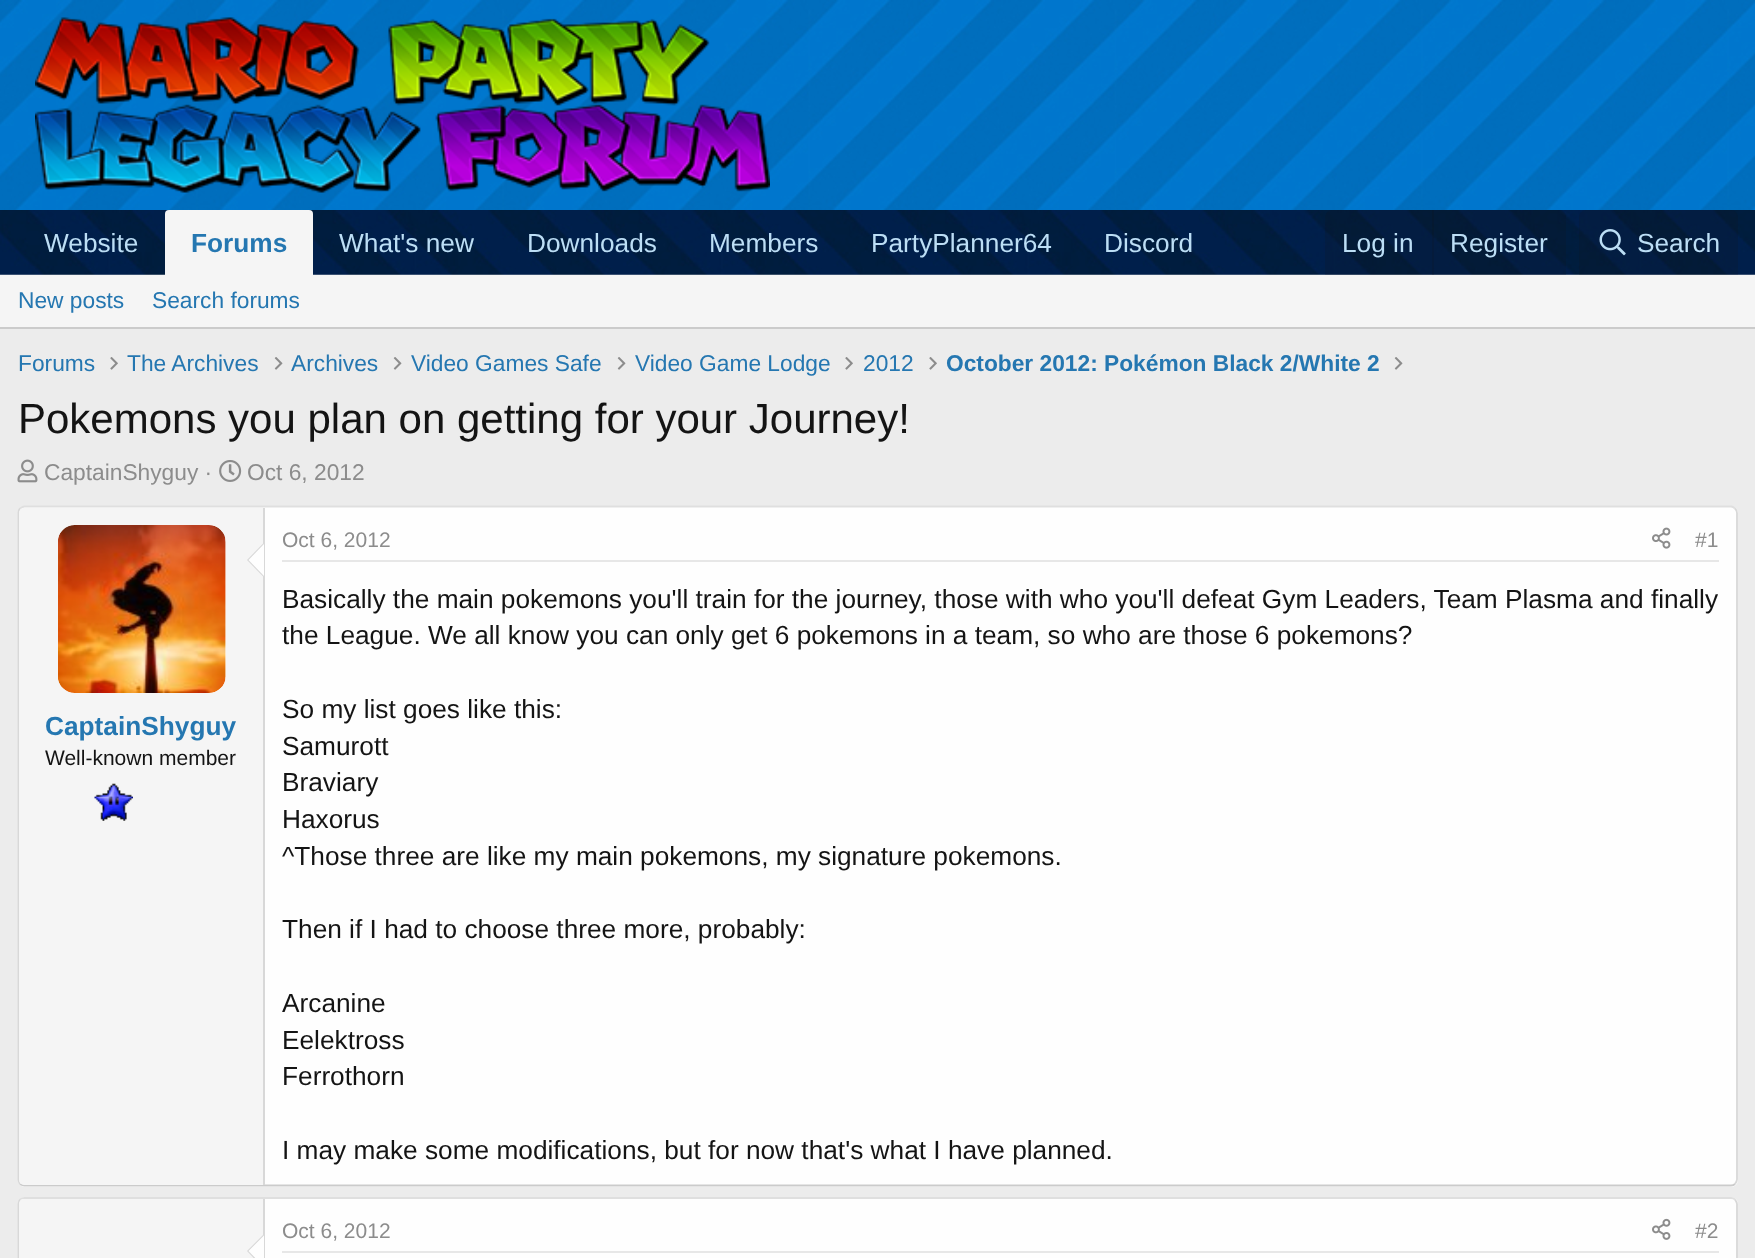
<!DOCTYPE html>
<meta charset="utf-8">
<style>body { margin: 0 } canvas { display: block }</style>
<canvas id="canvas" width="1755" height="1258"></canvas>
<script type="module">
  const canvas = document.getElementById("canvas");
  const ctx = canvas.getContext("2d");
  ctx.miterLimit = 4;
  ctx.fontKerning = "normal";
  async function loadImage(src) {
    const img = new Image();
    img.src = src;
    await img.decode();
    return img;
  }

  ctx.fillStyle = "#ececec";
  ctx.fillRect(0, 0, 1755, 1258);
  ctx.drawImage(await loadImage("img1.png"), 0, 0, 1755, 210);
  ctx.drawImage(await loadImage("img2.png"), 35, 17, 735, 176);
  ctx.drawImage(await loadImage("img3.png"), 0, 210, 1755, 65);
  ctx.font = "26.25px Liberation Sans";
  ctx.fillStyle = "#bcdef5";
  ctx.fillText("Website", 44, 252);
  ctx.fillStyle = "#f5f5f5";
  ctx.beginPath();
  ctx.roundRect(165, 210, 148, 65, [4, 4, 0, 0]);
  ctx.fill();
  ctx.font = "bold 26.25px Liberation Sans";
  ctx.fillStyle = "#2577b1";
  ctx.fillText("Forums", 191, 252);
  ctx.font = "26.25px Liberation Sans";
  ctx.fillStyle = "#bcdef5";
  ctx.fillText("What's new", 339, 252);
  ctx.fillText("Downloads", 527, 252);
  ctx.fillText("Members", 709, 252);
  ctx.fillText("PartyPlanner64", 871, 252);
  ctx.fillText("Discord", 1104, 252);
  ctx.fillStyle = "rgba(20, 20, 20, 0.15)";
  ctx.beginPath();
  ctx.roundRect(1325, 210, 241, 65, [7, 7, 0, 0]);
  ctx.fill();
  ctx.fillStyle = "#bcdef5";
  ctx.fillText("Log in", 1342, 252);
  ctx.fillStyle = "rgba(20, 20, 20, 0.15)";
  ctx.fillRect(1432, 210, 2, 65);
  ctx.fillStyle = "#bcdef5";
  ctx.fillText("Register", 1450, 252);
  ctx.fillStyle = "rgba(20, 20, 20, 0.15)";
  ctx.beginPath();
  ctx.roundRect(1579, 210, 159, 65, [7, 7, 0, 0]);
  ctx.fill();
  ctx.drawImage(await loadImage("img4.png"), 1599, 229, 27, 27);
  ctx.fillStyle = "#bcdef5";
  ctx.fillText("Search", 1637, 252);
  ctx.fillStyle = "#f5f5f5";
  ctx.fillRect(0, 275, 1755, 52);
  ctx.fillStyle = "#cbcbcb";
  ctx.fillRect(0, 327, 1755, 2);
  ctx.font = "22.75px Liberation Sans";
  ctx.fillStyle = "#2577b1";
  ctx.fillText("New posts", 18, 308);
  ctx.fillText("Search forums", 152, 308);
  ctx.fillText("Forums", 18, 371);
  ctx.drawImage(await loadImage("img5.png"), 110, 357, 8, 13);
  ctx.fillText("The Archives", 127, 371);
  ctx.drawImage(await loadImage("img6.png"), 274, 357, 9, 13);
  ctx.fillText("Archives", 291, 371);
  ctx.drawImage(await loadImage("img6.png"), 393, 357, 9, 13);
  ctx.fillText("Video Games Safe", 411, 371);
  ctx.drawImage(await loadImage("img6.png"), 617, 357, 9, 13);
  ctx.fillText("Video Game Lodge", 635, 371);
  ctx.drawImage(await loadImage("img5.png"), 845, 357, 8, 13);
  ctx.fillText("2012", 863, 371);
  ctx.drawImage(await loadImage("img5.png"), 929, 357, 8, 13);
  ctx.font = "bold 22.75px Liberation Sans";
  ctx.fillText("October 2012: Pokémon Black 2/White 2", 946, 371);
  ctx.drawImage(await loadImage("img6.png"), 1394, 357, 9, 13);
  ctx.font = "42px Liberation Sans";
  ctx.fillStyle = "#141414";
  ctx.fillText("Pokemons you plan on getting for your Journey!", 18, 433);
  ctx.drawImage(await loadImage("img7.png"), 17, 459, 21, 24);
  ctx.font = "22.75px Liberation Sans";
  ctx.fillStyle = "#8c8c8c";
  ctx.fillText("CaptainShyguy ·", 44, 480);
  ctx.drawImage(await loadImage("img8.png"), 219, 460, 23, 22);
  ctx.fillText("Oct 6, 2012", 247, 480);
  ctx.fillStyle = "#fefefe";
  ctx.beginPath();
  ctx.roundRect(18, 506, 1720, 681, 7);
  ctx.fill();
  ctx.beginPath();
  ctx.moveTo(20, 508.5);
  ctx.bezierCurveTo(21.5, 507.5, 23, 506.5, 24.5, 506.5);
  ctx.lineTo(1731, 506.5);
  ctx.bezierCurveTo(1732.5, 506.5, 1734, 507.5, 1735, 508.5);
  ctx.strokeStyle = "#dfdfdf";
  ctx.lineWidth = 1.8;
  ctx.stroke();
  ctx.beginPath();
  ctx.moveTo(1735, 508.5);
  ctx.bezierCurveTo(1736, 509.5, 1737, 511, 1737, 513);
  ctx.lineTo(1737, 1179.5);
  ctx.bezierCurveTo(1737, 1181, 1736, 1182.5, 1735, 1184);
  ctx.strokeStyle = "#d8d8d8";
  ctx.stroke();
  ctx.beginPath();
  ctx.moveTo(1735, 1184);
  ctx.bezierCurveTo(1734, 1185, 1732.5, 1185.5, 1731, 1185.5);
  ctx.lineTo(24.5, 1185.5);
  ctx.bezierCurveTo(23, 1185.5, 21.5, 1185, 20, 1184);
  ctx.strokeStyle = "#cbcbcb";
  ctx.stroke();
  ctx.beginPath();
  ctx.moveTo(20, 1184);
  ctx.bezierCurveTo(19, 1182.5, 18.5, 1181, 18.5, 1179.5);
  ctx.lineTo(18.5, 513);
  ctx.bezierCurveTo(18.5, 511, 19, 509.5, 20, 508.5);
  ctx.strokeStyle = "#d8d8d8";
  ctx.stroke();
  ctx.fillStyle = "#f5f5f5";
  ctx.beginPath();
  ctx.roundRect(19, 508, 245, 677, [5, 0, 0, 5]);
  ctx.fill();
  ctx.fillStyle = "#d8d8d8";
  ctx.fillRect(263, 508, 2, 677);
  ctx.fillStyle = "#fefefe";
  ctx.beginPath();
  ctx.roundRect(58, 525, 168, 168, 18);
  ctx.fill();
  ctx.drawImage(await loadImage("img9.png"), 58, 525, 168, 168);
  ctx.fillStyle = "#d8d8d8";
  ctx.beginPath();
  ctx.moveTo(264, 542.5);
  ctx.lineTo(264, 577.5);
  ctx.lineTo(247, 560);
  ctx.closePath();
  ctx.fill();
  ctx.fillStyle = "#fefefe";
  ctx.beginPath();
  ctx.moveTo(264, 544);
  ctx.lineTo(264, 576);
  ctx.lineTo(248.5, 560);
  ctx.closePath();
  ctx.fill();
  ctx.font = "bold 26.25px Liberation Sans";
  ctx.fillStyle = "#2577b1";
  ctx.fillText("CaptainShyguy", 45, 735);
  ctx.font = "21px Liberation Sans";
  ctx.fillStyle = "#141414";
  ctx.fillText("Well-known member", 45, 765);
  ctx.drawImage(await loadImage("img10.png"), 94, 783, 39, 38);
  ctx.fillStyle = "#e7e7e7";
  ctx.fillRect(282, 560, 1437, 2);
  ctx.fillStyle = "#8c8c8c";
  ctx.fillText("Oct 6, 2012", 282, 547);
  ctx.drawImage(await loadImage("img11.png"), 1652, 527, 19, 22);
  ctx.fillText("#1", 1695, 547);
  ctx.font = "26.25px Liberation Sans";
  ctx.fillStyle = "#141414";
  ctx.fillText("Basically the main pokemons you'll train for the journey, those with who you'll defeat Gym Leaders, Team Plasma and finally", 282, 608);
  ctx.fillText("the League. We all know you can only get 6 pokemons in a team, so who are those 6 pokemons?", 282, 644);
  ctx.fillText("So my list goes like this:", 282, 718);
  ctx.fillText("Samurott", 282, 755);
  ctx.fillText("Braviary", 282, 791);
  ctx.fillText("Haxorus", 282, 828);
  ctx.fillText("^Those three are like my main pokemons, my signature pokemons.", 282, 865);
  ctx.fillText("Then if I had to choose three more, probably:", 282, 938);
  ctx.fillText("Arcanine", 282, 1012);
  ctx.fillText("Eelektross", 282, 1049);
  ctx.fillText("Ferrothorn", 282, 1085);
  ctx.fillText("I may make some modifications, but for now that's what I have planned.", 282, 1159);
  ctx.fillStyle = "#fefefe";
  ctx.beginPath();
  ctx.roundRect(18, 1197, 1720, 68, 7);
  ctx.fill();
  ctx.beginPath();
  ctx.moveTo(20, 1199.5);
  ctx.bezierCurveTo(21.5, 1198.5, 23, 1198, 24.5, 1198);
  ctx.lineTo(1731, 1198);
  ctx.bezierCurveTo(1732.5, 1198, 1734, 1198.5, 1735, 1199.5);
  ctx.strokeStyle = "#dfdfdf";
  ctx.stroke();
  ctx.beginPath();
  ctx.moveTo(1735, 1199.5);
  ctx.bezierCurveTo(1736, 1201, 1737, 1202.5, 1737, 1204);
  ctx.lineTo(1737, 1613.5);
  ctx.bezierCurveTo(1737, 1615, 1736, 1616.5, 1735, 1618);
  ctx.strokeStyle = "#d8d8d8";
  ctx.stroke();
  ctx.beginPath();
  ctx.moveTo(20, 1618);
  ctx.bezierCurveTo(19, 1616.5, 18.5, 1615, 18.5, 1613.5);
  ctx.lineTo(18.5, 1204);
  ctx.bezierCurveTo(18.5, 1202.5, 19, 1201, 20, 1199.5);
  ctx.stroke();
  ctx.fillStyle = "#f5f5f5";
  ctx.beginPath();
  ctx.moveTo(24, 1199);
  ctx.lineTo(264, 1199);
  ctx.lineTo(264, 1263);
  ctx.lineTo(24, 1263);
  ctx.bezierCurveTo(21, 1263, 19, 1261, 19, 1258);
  ctx.lineTo(19, 1204);
  ctx.bezierCurveTo(19, 1201, 21, 1199, 24, 1199);
  ctx.closePath();
  ctx.fill();
  ctx.fillStyle = "#d8d8d8";
  ctx.fillRect(263, 1199, 2, 59);
  ctx.beginPath();
  ctx.moveTo(264, 1234);
  ctx.lineTo(264, 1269);
  ctx.lineTo(247, 1251);
  ctx.closePath();
  ctx.fill();
  ctx.fillStyle = "#fefefe";
  ctx.beginPath();
  ctx.moveTo(264, 1235.5);
  ctx.lineTo(264, 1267);
  ctx.lineTo(248.5, 1251);
  ctx.closePath();
  ctx.fill();
  ctx.fillStyle = "#e7e7e7";
  ctx.fillRect(282, 1251, 1437, 2);
  ctx.font = "21px Liberation Sans";
  ctx.fillStyle = "#8c8c8c";
  ctx.fillText("Oct 6, 2012", 282, 1238);
  ctx.drawImage(await loadImage("img12.png"), 1652, 1218, 19, 22);
  ctx.fillText("#2", 1695, 1238);
</script>
